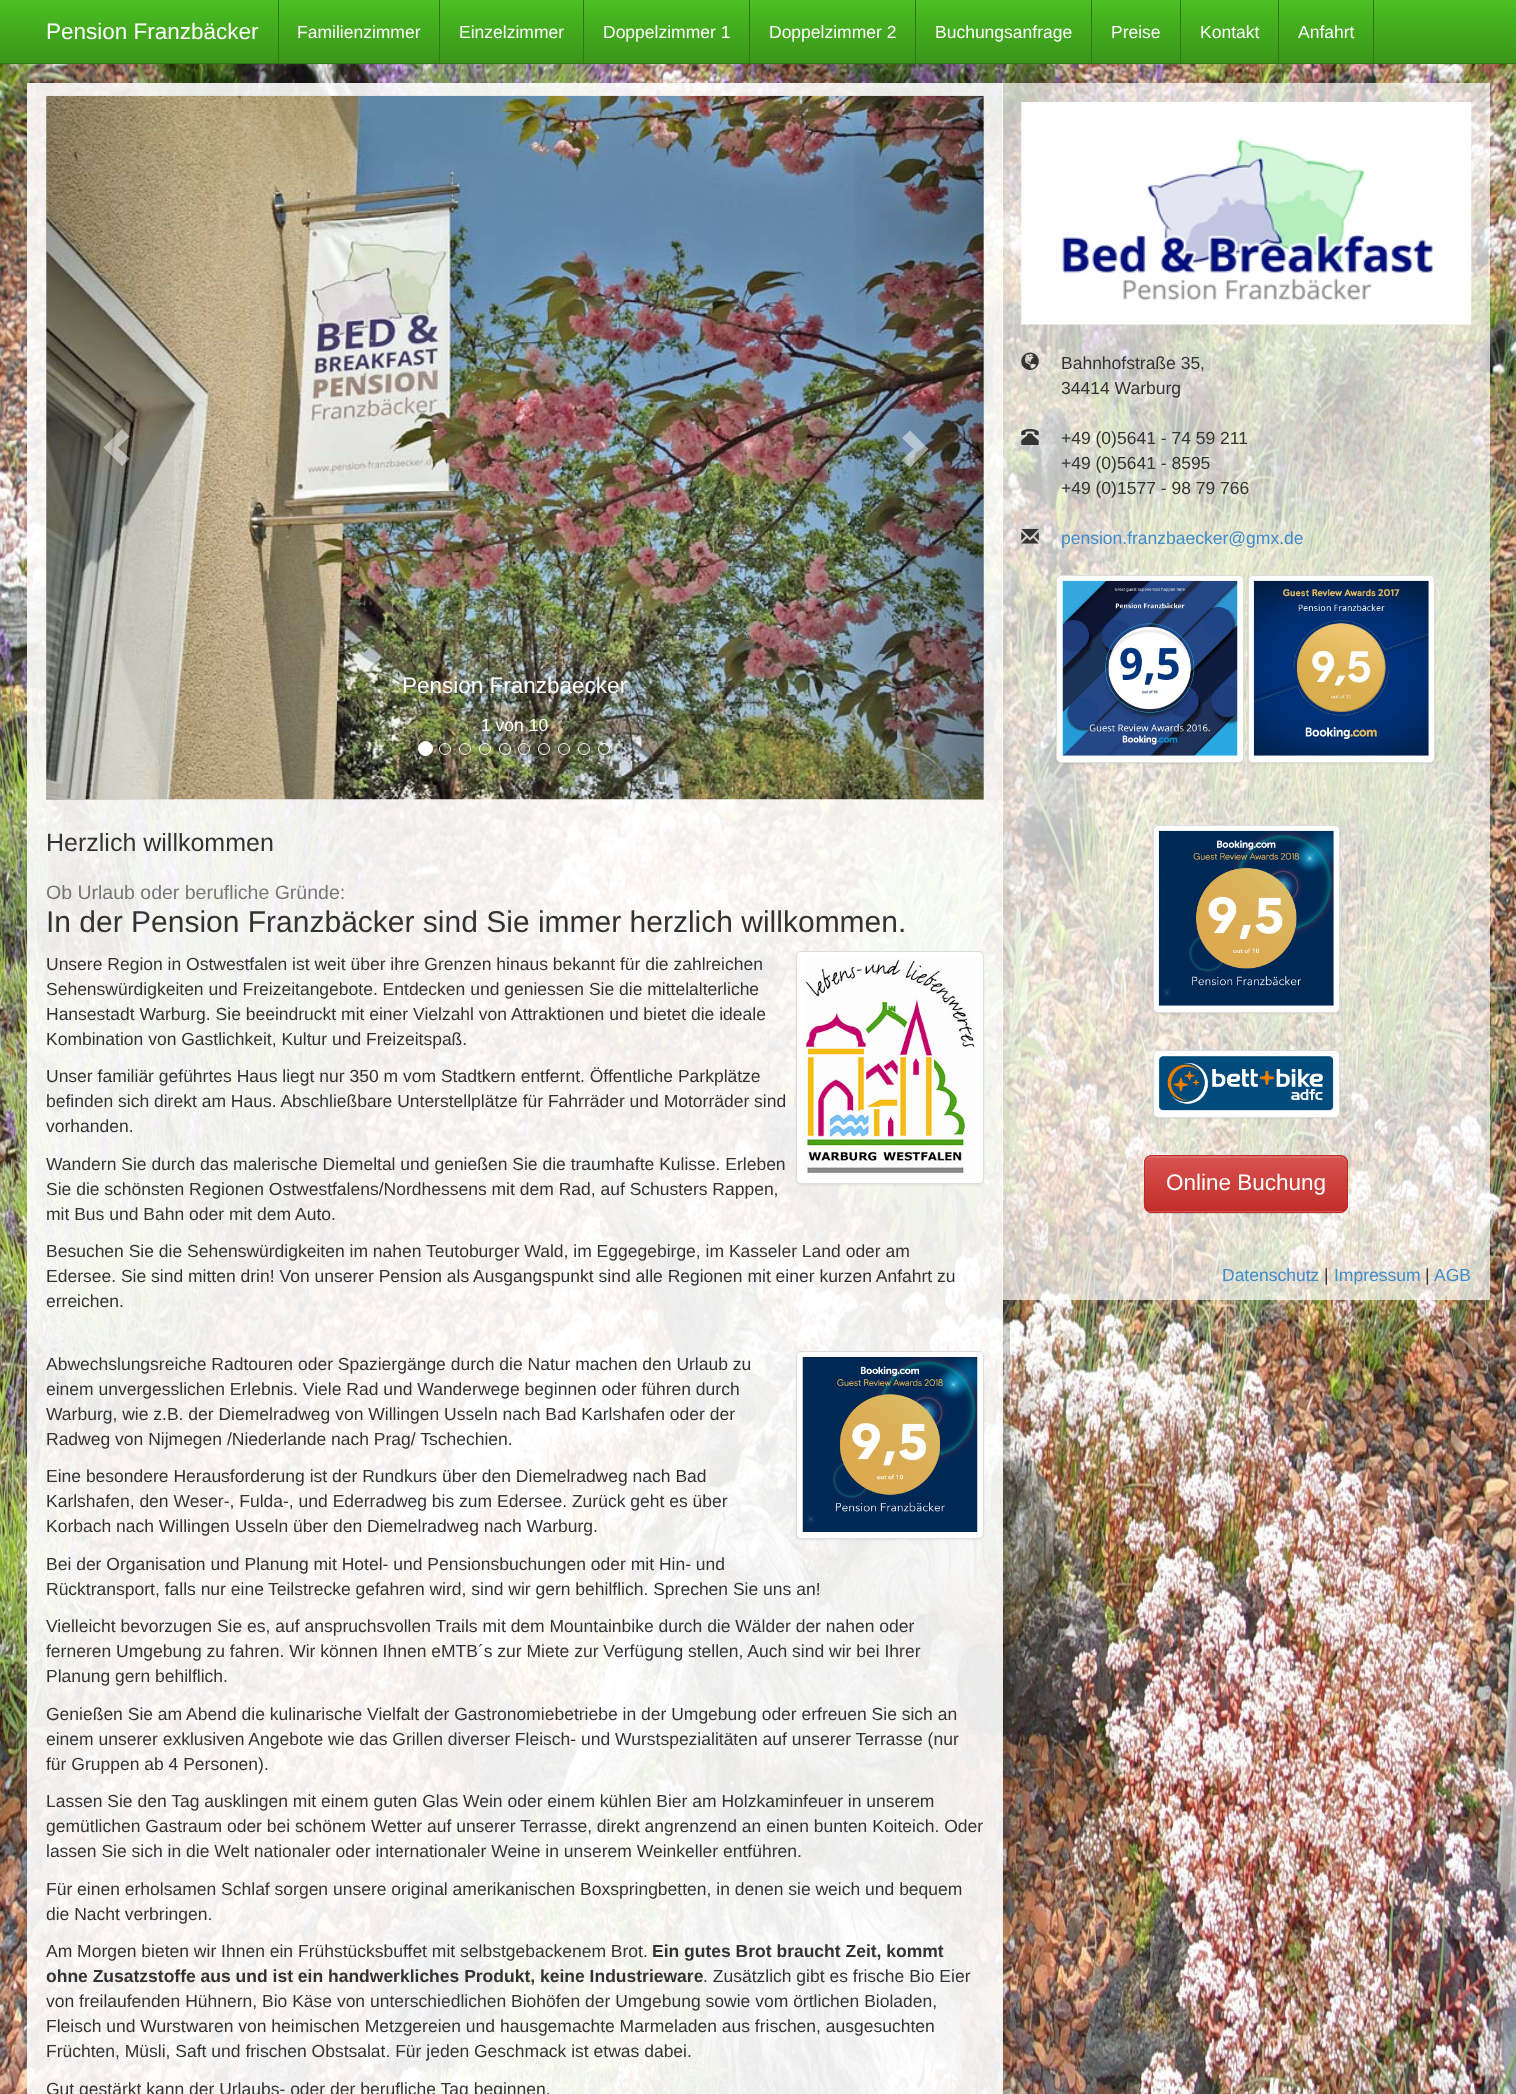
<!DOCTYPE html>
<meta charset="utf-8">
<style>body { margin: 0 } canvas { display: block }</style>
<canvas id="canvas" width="1516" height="2094"></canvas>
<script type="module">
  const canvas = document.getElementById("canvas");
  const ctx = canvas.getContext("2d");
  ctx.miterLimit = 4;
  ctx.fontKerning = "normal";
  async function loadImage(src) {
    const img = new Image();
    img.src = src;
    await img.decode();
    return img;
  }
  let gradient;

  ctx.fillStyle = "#ffffff";
  ctx.fillRect(0, 0, 1516, 2094);
  gradient = ctx.createLinearGradient(758, 0, 758, 63);
  gradient.addColorStop(0, "#4bbf22");
  gradient.addColorStop(1, "#3a941a");
  ctx.fillStyle = gradient;
  ctx.fillRect(0, 0, 1516, 63);
  ctx.fillStyle = "#2f7815";
  ctx.fillRect(0, 63, 1516, 1);
  ctx.font = "22.5px Liberation Sans";
  ctx.fillStyle = "#ffffff";
  ctx.fillText("Pension Franzbäcker", 46, 39);
  ctx.fillStyle = "#2f7815";
  ctx.fillRect(278, 0, 1, 63);
  ctx.font = "17.5px Liberation Sans";
  ctx.fillStyle = "#ffffff";
  ctx.fillText("Familienzimmer", 297, 38);
  ctx.fillStyle = "#2f7815";
  ctx.fillRect(439, 0, 1, 63);
  ctx.fillStyle = "#ffffff";
  ctx.fillText("Einzelzimmer", 459, 38);
  ctx.fillStyle = "#2f7815";
  ctx.fillRect(583, 0, 1, 63);
  ctx.fillStyle = "#ffffff";
  ctx.fillText("Doppelzimmer 1", 603, 38);
  ctx.fillStyle = "#2f7815";
  ctx.fillRect(749, 0, 1, 63);
  ctx.fillStyle = "#ffffff";
  ctx.fillText("Doppelzimmer 2", 769, 38);
  ctx.fillStyle = "#2f7815";
  ctx.fillRect(915, 0, 1, 63);
  ctx.fillStyle = "#ffffff";
  ctx.fillText("Buchungsanfrage", 935, 38);
  ctx.fillStyle = "#2f7815";
  ctx.fillRect(1091, 0, 1, 63);
  ctx.fillStyle = "#ffffff";
  ctx.fillText("Preise", 1111, 38);
  ctx.fillStyle = "#2f7815";
  ctx.fillRect(1180, 0, 1, 63);
  ctx.fillStyle = "#ffffff";
  ctx.fillText("Kontakt", 1200, 38);
  ctx.fillStyle = "#2f7815";
  ctx.fillRect(1373, 0, 1, 63);
  ctx.fillRect(1278, 0, 1, 63);
  ctx.fillStyle = "#ffffff";
  ctx.fillText("Anfahrt", 1298, 38);
  ctx.drawImage(await loadImage("img12.png"), 0, 64, 1516, 2030);
  ctx.fillStyle = "rgba(37, 37, 37, 0.2)";
  ctx.beginPath();
  ctx.moveTo(33, 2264);
  ctx.lineTo(33, 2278);
  ctx.lineTo(1010, 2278);
  ctx.lineTo(1010, 95);
  ctx.lineTo(1002, 95);
  ctx.lineTo(1002, 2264);
  ctx.closePath();
  ctx.fill();
  ctx.fillStyle = "rgba(255, 255, 255, 0.9)";
  ctx.fillRect(27, 83, 976, 2011);
  ctx.drawImage(await loadImage("img1.png"), 46, 95, 938, 705);
  gradient = ctx.createLinearGradient(46, 448, 186, 448);
  gradient.addColorStop(0, "rgba(0, 0, 0, 0.25)");
  gradient.addColorStop(1, "rgba(0, 0, 0, 0)");
  ctx.fillStyle = gradient;
  ctx.fillRect(46, 96, 128, 704);
  ctx.fillStyle = "rgba(255, 255, 255, 0.5)";
  ctx.beginPath();
  ctx.moveTo(103.5, 447.5);
  ctx.lineTo(122, 466);
  ctx.lineTo(129.5, 458.5);
  ctx.lineTo(118, 447.5);
  ctx.lineTo(129.5, 436.5);
  ctx.lineTo(122, 429);
  ctx.closePath();
  ctx.fill();
  ctx.font = "22.5px Liberation Sans";
  ctx.fillStyle = "#ffffff";
  ctx.fillText("Pension Franzbaecker", 402, 693);
  ctx.font = "17.5px Liberation Sans";
  ctx.fillText("1 von 10", 481, 731);
  gradient = ctx.createLinearGradient(843, 448, 984, 448);
  gradient.addColorStop(0, "rgba(0, 0, 0, 0)");
  gradient.addColorStop(1, "rgba(0, 0, 0, 0.25)");
  ctx.fillStyle = gradient;
  ctx.fillRect(855, 96, 129, 704);
  ctx.fillStyle = "rgba(255, 255, 255, 0.5)";
  ctx.beginPath();
  ctx.moveTo(902, 460);
  ctx.lineTo(913.5, 449);
  ctx.lineTo(902, 438);
  ctx.lineTo(910, 430.5);
  ctx.lineTo(928.5, 449);
  ctx.lineTo(910, 467.5);
  ctx.closePath();
  ctx.fill();
  ctx.fillStyle = "#ffffff";
  ctx.beginPath();
  ctx.arc(425.5, 748.5, 7, 0, Math.PI * 2);
  ctx.fill();
  ctx.strokeStyle = "#ffffff";
  ctx.stroke();
  ctx.beginPath();
  ctx.arc(445, 749, 5.5, 0, Math.PI * 2);
  ctx.stroke();
  ctx.beginPath();
  ctx.arc(465, 749, 5.5, 0, Math.PI * 2);
  ctx.stroke();
  ctx.beginPath();
  ctx.arc(485, 749, 5.5, 0, Math.PI * 2);
  ctx.stroke();
  ctx.beginPath();
  ctx.arc(505, 749, 5.5, 0, Math.PI * 2);
  ctx.stroke();
  ctx.beginPath();
  ctx.arc(524, 749, 5.5, 0, Math.PI * 2);
  ctx.stroke();
  ctx.beginPath();
  ctx.arc(544, 749, 5.5, 0, Math.PI * 2);
  ctx.stroke();
  ctx.beginPath();
  ctx.arc(564, 749, 5.5, 0, Math.PI * 2);
  ctx.stroke();
  ctx.beginPath();
  ctx.arc(584, 749, 5.5, 0, Math.PI * 2);
  ctx.stroke();
  ctx.beginPath();
  ctx.arc(604, 749, 5.5, 0, Math.PI * 2);
  ctx.stroke();
  ctx.font = "25px Liberation Sans";
  ctx.fillStyle = "#333333";
  ctx.fillText("Herzlich willkommen", 46, 851);
  ctx.font = "19.5px Liberation Sans";
  ctx.fillStyle = "#777777";
  ctx.fillText("Ob Urlaub oder berufliche Gründe:", 46, 899);
  ctx.font = "30px Liberation Sans";
  ctx.fillStyle = "#333333";
  ctx.fillText("In der Pension Franzbäcker sind Sie immer herzlich willkommen.", 46, 932);
  ctx.font = "17.5px Liberation Sans";
  ctx.fillText("Unsere Region in Ostwestfalen ist weit über ihre Grenzen hinaus bekannt für die zahlreichen", 46, 970);
  ctx.fillText("Sehenswürdigkeiten und Freizeitangebote. Entdecken und geniessen Sie die mittelalterliche", 46, 995);
  ctx.fillText("Hansestadt Warburg. Sie beeindruckt mit einer Vielzahl von Attraktionen und bietet die ideale", 46, 1020);
  ctx.fillText("Kombination von Gastlichkeit, Kultur und Freizeitspaß.", 46, 1045);
  ctx.fillStyle = "rgba(0, 0, 0, 0.07)";
  ctx.filter = "blur(1px)";
  ctx.beginPath();
  ctx.roundRect(796, 953, 188, 232, 5);
  ctx.fill();
  ctx.filter = "none";
  ctx.fillStyle = "#ffffff";
  ctx.beginPath();
  ctx.roundRect(796.5, 951.5, 187, 232, 4.5);
  ctx.fill();
  ctx.strokeStyle = "#dddddd";
  ctx.stroke();
  ctx.drawImage(await loadImage("img2.png"), 803, 957, 173, 218);
  ctx.fillStyle = "#333333";
  ctx.fillText("Unser familiär geführtes Haus liegt nur 350 m vom Stadtkern entfernt. Öffentliche Parkplätze", 46, 1082);
  ctx.fillText("befinden sich direkt am Haus. Abschließbare Unterstellplätze für Fahrräder und Motorräder sind", 46, 1107);
  ctx.fillText("vorhanden.", 46, 1132);
  ctx.fillText("Wandern Sie durch das malerische Diemeltal und genießen Sie die traumhafte Kulisse. Erleben", 46, 1170);
  ctx.fillText("Sie die schönsten Regionen Ostwestfalens/Nordhessens mit dem Rad, auf Schusters Rappen,", 46, 1195);
  ctx.fillText("mit Bus und Bahn oder mit dem Auto.", 46, 1220);
  ctx.fillText("Besuchen Sie die Sehenswürdigkeiten im nahen Teutoburger Wald, im Eggegebirge, im Kasseler Land oder am", 46, 1257);
  ctx.fillText("Edersee. Sie sind mitten drin! Von unserer Pension als Ausgangspunkt sind alle Regionen mit einer kurzen Anfahrt zu", 46, 1282);
  ctx.fillText("erreichen.", 46, 1307);
  ctx.fillText("Abwechslungsreiche Radtouren oder Spaziergänge durch die Natur machen den Urlaub zu", 46, 1370);
  ctx.fillText("einem unvergesslichen Erlebnis. Viele Rad und Wanderwege beginnen oder führen durch", 46, 1395);
  ctx.fillText("Warburg, wie z.B. der Diemelradweg von Willingen Usseln nach Bad Karlshafen oder der", 46, 1420);
  ctx.fillText("Radweg von Nijmegen /Niederlande nach Prag/ Tschechien.", 46, 1445);
  ctx.fillStyle = "rgba(0, 0, 0, 0.07)";
  ctx.filter = "blur(1px)";
  ctx.beginPath();
  ctx.roundRect(796, 1353, 188, 187, 5);
  ctx.fill();
  ctx.filter = "none";
  ctx.fillStyle = "#ffffff";
  ctx.beginPath();
  ctx.roundRect(796.5, 1351.5, 187, 187, 4.5);
  ctx.fill();
  ctx.stroke();
  ctx.drawImage(await loadImage("img3.png"), 802, 1357, 176, 175);
  ctx.fillStyle = "#333333";
  ctx.fillText("Eine besondere Herausforderung ist der Rundkurs über den Diemelradweg nach Bad", 46, 1482);
  ctx.fillText("Karlshafen, den Weser-, Fulda-, und Ederradweg bis zum Edersee. Zurück geht es über", 46, 1507);
  ctx.fillText("Korbach nach Willingen Usseln über den Diemelradweg nach Warburg.", 46, 1532);
  ctx.fillText("Bei der Organisation und Planung mit Hotel- und Pensionsbuchungen oder mit Hin- und", 46, 1570);
  ctx.fillText("Rücktransport, falls nur eine", 46, 1595);
  ctx.fillText("Teilstrecke gefahren wird, sind wir gern behilflich. Sprechen Sie uns an!", 268, 1595);
  ctx.fillText("Vielleicht bevorzugen Sie es, auf anspruchsvollen Trails mit dem Mountainbike durch die Wälder der nahen oder", 46, 1632);
  ctx.fillText("ferneren Umgebung zu fahren. Wir können Ihnen eMTB´s zur Miete zur Verfügung stellen, Auch sind wir bei Ihrer", 46, 1657);
  ctx.fillText("Planung gern behilflich.", 46, 1682);
  ctx.fillText("Genießen Sie am Abend die kulinarische Vielfalt der Gastronomiebetriebe in der Umgebung oder erfreuen Sie sich an", 46, 1720);
  ctx.fillText("einem unserer exklusiven Angebote wie das Grillen diverser Fleisch- und Wurstspezialitäten auf unserer Terrasse (nur", 46, 1745);
  ctx.fillText("für Gruppen ab 4 Personen).", 46, 1770);
  ctx.fillText("Lassen Sie den Tag ausklingen mit einem guten Glas Wein oder einem kühlen Bier am Holzkaminfeuer in unserem", 46, 1807);
  ctx.fillText("gemütlichen Gastraum oder bei schönem Wetter auf unserer Terrasse, direkt angrenzend an einen bunten Koiteich. Oder", 46, 1832);
  ctx.fillText("lassen Sie sich in die Welt nationaler oder internationaler Weine in unserem Weinkeller entführen.", 46, 1857);
  ctx.fillText("Für einen erholsamen Schlaf sorgen unsere original amerikanischen Boxspringbetten, in denen sie weich und bequem", 46, 1895);
  ctx.fillText("die Nacht verbringen.", 46, 1920);
  ctx.fillText("Am Morgen bieten wir Ihnen ein Frühstücksbuffet mit selbstgebackenem Brot.", 46, 1957);
  ctx.font = "bold 17.5px Liberation Sans";
  ctx.fillText("Ein gutes Brot braucht Zeit, kommt", 652, 1957);
  ctx.fillText("ohne Zusatzstoffe aus und ist ein handwerkliches Produkt, keine Industrieware", 46, 1982);
  ctx.font = "17.5px Liberation Sans";
  ctx.fillText(". Zusätzlich gibt es frische Bio Eier", 703, 1982);
  ctx.fillText("von freilaufenden Hühnern, Bio Käse von unterschiedlichen Biohöfen der Umgebung sowie vom örtlichen Bioladen,", 46, 2007);
  ctx.fillText("Fleisch und Wurstwaren von heimischen Metzgereien und hausgemachte Marmeladen aus frischen, ausgesuchten", 46, 2032);
  ctx.fillText("Früchten, Müsli, Saft und frischen Obstsalat. Für jeden Geschmack ist etwas dabei.", 46, 2057);
  ctx.fillText("Gut gestärkt kann der Urlaubs- oder der berufliche Tag beginnen.", 46, 2095);
  ctx.fillStyle = "rgba(255, 255, 255, 0.7)";
  ctx.fillRect(1002, 83, 488, 1217);
  ctx.drawImage(await loadImage("img4.png"), 1021, 102, 451, 223);
  ctx.drawImage(await loadImage("img5.png"), 1021, 352, 18, 18);
  ctx.fillStyle = "#333333";
  ctx.fillText("Bahnhofstraße 35,", 1061, 369);
  ctx.fillText("34414 Warburg", 1061, 394);
  ctx.drawImage(await loadImage("img6.png"), 1021, 429, 18, 16);
  ctx.fillText("+49 (0)5641 - 74 59 211", 1061, 444);
  ctx.fillText("+49 (0)5641 - 8595", 1061, 469);
  ctx.fillText("+49 (0)1577 - 98 79 766", 1061, 494);
  ctx.drawImage(await loadImage("img7.png"), 1021, 528, 18, 16);
  ctx.fillStyle = "#428bca";
  ctx.fillText("pension.franzbaecker@gmx.de", 1061, 544);
  ctx.fillStyle = "rgba(0, 0, 0, 0.07)";
  ctx.filter = "blur(1px)";
  ctx.beginPath();
  ctx.roundRect(1056, 576, 188, 188, 5);
  ctx.fill();
  ctx.filter = "none";
  ctx.fillStyle = "#ffffff";
  ctx.beginPath();
  ctx.roundRect(1056.5, 575.5, 187, 187, 4.5);
  ctx.fill();
  ctx.stroke();
  ctx.drawImage(await loadImage("img8.png"), 1062, 580, 176, 176);
  ctx.fillStyle = "rgba(0, 0, 0, 0.07)";
  ctx.filter = "blur(1px)";
  ctx.beginPath();
  ctx.roundRect(1248, 576, 187, 188, 5);
  ctx.fill();
  ctx.filter = "none";
  ctx.fillStyle = "#ffffff";
  ctx.beginPath();
  ctx.roundRect(1248.5, 575.5, 186, 187, 4.5);
  ctx.fill();
  ctx.stroke();
  ctx.drawImage(await loadImage("img9.png"), 1253, 580, 176, 176);
  ctx.fillStyle = "rgba(0, 0, 0, 0.07)";
  ctx.filter = "blur(1px)";
  ctx.beginPath();
  ctx.roundRect(1153, 826, 187, 188, 5);
  ctx.fill();
  ctx.filter = "none";
  ctx.fillStyle = "#ffffff";
  ctx.beginPath();
  ctx.roundRect(1153.5, 825.5, 186, 187, 4.5);
  ctx.fill();
  ctx.stroke();
  ctx.drawImage(await loadImage("img10.png"), 1158, 830, 176, 176);
  ctx.fillStyle = "rgba(0, 0, 0, 0.07)";
  ctx.filter = "blur(1px)";
  ctx.beginPath();
  ctx.roundRect(1153, 1051, 187, 68, 5);
  ctx.fill();
  ctx.filter = "none";
  ctx.fillStyle = "#ffffff";
  ctx.beginPath();
  ctx.roundRect(1153.5, 1050.5, 186, 67, 4.5);
  ctx.fill();
  ctx.stroke();
  ctx.drawImage(await loadImage("img11.png"), 1158, 1056, 176, 55);
  ctx.fillStyle = "rgba(0, 0, 0, 0.07)";
  ctx.filter = "blur(0.5px)";
  ctx.beginPath();
  ctx.roundRect(1144, 1156, 204, 58, 8);
  ctx.fill();
  ctx.filter = "none";
  ctx.fillStyle = "#d9534f";
  ctx.beginPath();
  ctx.roundRect(1144, 1155, 204, 58, 8);
  ctx.fill();
  ctx.save();
  ctx.beginPath();
  ctx.roundRect(1144, 1155, 204, 58, 8);
  ctx.clip();
  gradient = ctx.createLinearGradient(1246, 1156, 1246, 1211);
  gradient.addColorStop(0, "#d9534f");
  gradient.addColorStop(1, "#c12e2a");
  ctx.fillStyle = gradient;
  ctx.fillRect(1144, 1156, 204, 55);
  ctx.restore();
  ctx.fillStyle = "rgba(255, 255, 255, 0.15)";
  ctx.beginPath();
  ctx.moveTo(1151, 1158);
  ctx.lineTo(1340, 1158);
  ctx.bezierCurveTo(1343, 1158, 1346, 1160, 1346, 1164);
  ctx.lineTo(1346, 1162);
  ctx.bezierCurveTo(1346, 1159, 1343, 1156, 1340, 1156);
  ctx.lineTo(1151, 1156);
  ctx.bezierCurveTo(1148, 1156, 1145, 1159, 1145, 1162);
  ctx.lineTo(1145, 1164);
  ctx.bezierCurveTo(1145, 1160, 1148, 1158, 1151, 1158);
  ctx.closePath();
  ctx.fill();
  ctx.beginPath();
  ctx.roundRect(1144.5, 1155.5, 203, 57, 7.5);
  ctx.strokeStyle = "#b92c28";
  ctx.stroke();
  ctx.font = "22.5px Liberation Sans";
  ctx.fillStyle = "#ffffff";
  ctx.fillText("Online Buchung", 1166, 1190);
  ctx.font = "17.5px Liberation Sans";
  ctx.fillStyle = "#428bca";
  ctx.fillText("Datenschutz", 1222, 1281);
  ctx.fillStyle = "#333333";
  ctx.fillText("|", 1324, 1281);
  ctx.fillStyle = "#428bca";
  ctx.fillText("Impressum", 1334, 1281);
  ctx.fillStyle = "#333333";
  ctx.fillText("|", 1425, 1281);
  ctx.fillStyle = "#428bca";
  ctx.fillText("AGB", 1434, 1281);
</script>
